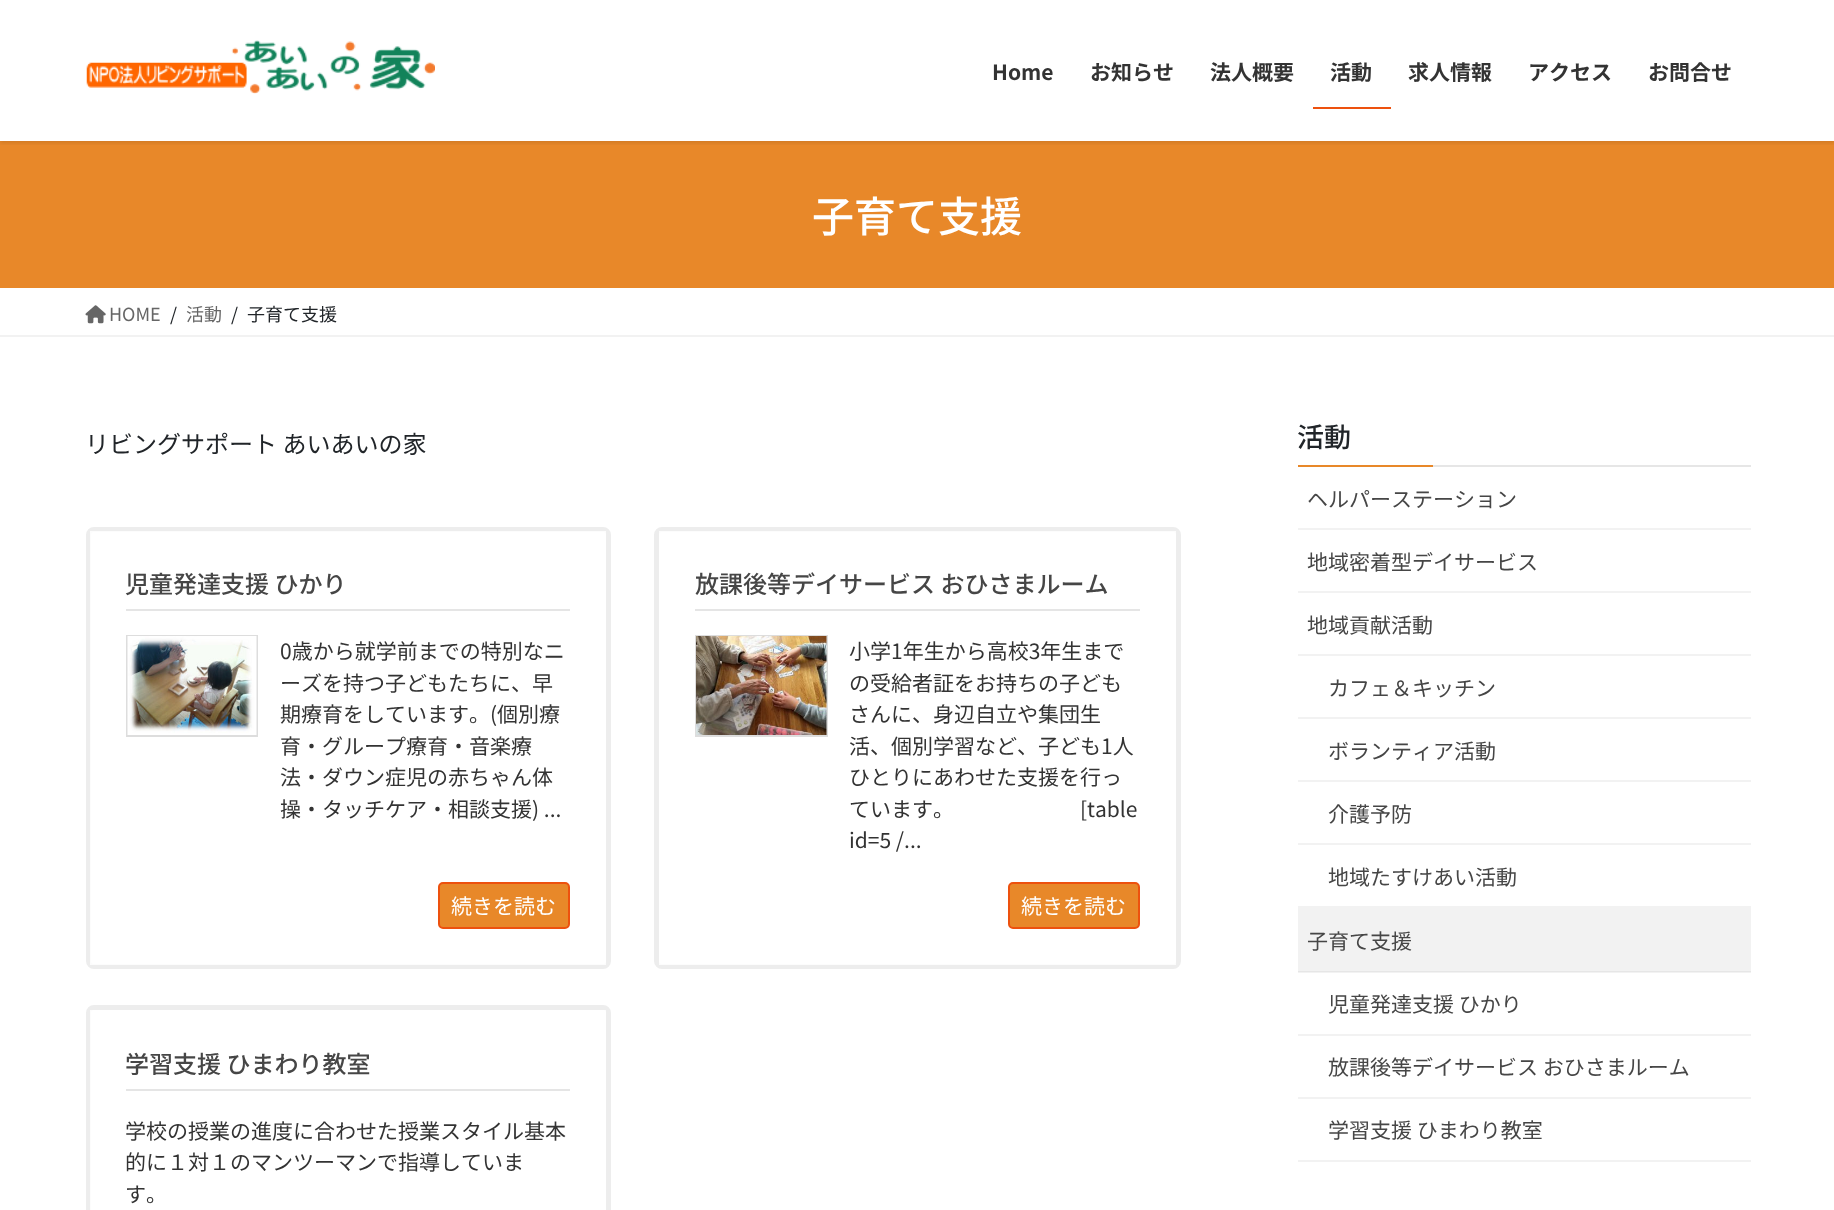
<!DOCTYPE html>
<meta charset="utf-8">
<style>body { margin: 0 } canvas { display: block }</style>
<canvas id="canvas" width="1834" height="1210"></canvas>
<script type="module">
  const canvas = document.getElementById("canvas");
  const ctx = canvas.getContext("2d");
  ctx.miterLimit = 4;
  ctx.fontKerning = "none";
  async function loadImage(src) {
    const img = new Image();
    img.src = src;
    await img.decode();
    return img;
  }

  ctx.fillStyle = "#ffffff";
  ctx.fillRect(0, 0, 1834, 1210);
  ctx.fillStyle = "#f2f2f2";
  ctx.fillRect(1298, 972, 453, 1);
  ctx.fillStyle = "#e88829";
  ctx.fillRect(0, 141, 1834, 147);
  ctx.save();
  ctx.beginPath();
  ctx.rect(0, 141, 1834, 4);
  ctx.clip();
  ctx.fillStyle = "rgba(0, 0, 0, 0.1)";
  ctx.filter = "blur(2px)";
  ctx.beginPath();
  ctx.rect(0, 2, 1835, 141);
  ctx.fill();
  ctx.filter = "none";
  ctx.restore();
  ctx.drawImage(await loadImage("img1.png"), 86, 40, 349, 54);
  ctx.font = "bold 21px Noto Sans JP";
  ctx.fillStyle = "#333333";
  ctx.fillText("Home", 992, 80);
  ctx.fillText("お知らせ", 1090, 80);
  ctx.fillText("法人概要", 1210, 80);
  ctx.fillText("活動", 1330, 80);
  ctx.fillStyle = "#ed510e";
  ctx.fillRect(1313, 107, 78, 2);
  ctx.fillStyle = "#333333";
  ctx.fillText("求人情報", 1408, 80);
  ctx.fillText("アクセス", 1528, 80);
  ctx.fillText("お問合せ", 1648, 80);
  ctx.font = "500 42px Noto Sans JP";
  ctx.fillStyle = "#ffffff";
  ctx.fillText("子育て支援", 812, 232);
  ctx.fillStyle = "#f2f2f2";
  ctx.fillRect(0, 335, 1834, 2);
  ctx.drawImage(await loadImage("img2.png"), 85, 305, 21, 19);
  ctx.font = "18px Noto Sans JP";
  ctx.fillStyle = "#666666";
  ctx.fillText("HOME", 109, 321);
  ctx.fillStyle = "#212529";
  ctx.fillText("/", 170, 321);
  ctx.fillStyle = "#666666";
  ctx.fillText("活動", 186, 321);
  ctx.fillStyle = "#212529";
  ctx.fillText("/", 231, 321);
  ctx.fillText("子育て支援", 247, 321);
  ctx.font = "24px Noto Sans JP";
  ctx.fillText("リビングサポート あいあいの家", 85, 453);
  ctx.beginPath();
  ctx.roundRect(88.5, 529.5, 520, 437, 5.5);
  ctx.strokeStyle = "#ededed";
  ctx.lineWidth = 5;
  ctx.stroke();
  ctx.strokeStyle = "rgba(255, 255, 255, 0.8)";
  ctx.lineWidth = 2;
  ctx.strokeRect(91, 532, 514, 432);
  ctx.fillStyle = "#e5e5e5";
  ctx.fillRect(126, 609, 444, 2);
  ctx.font = "500 24px Noto Sans JP";
  ctx.fillStyle = "#464646";
  ctx.fillText("児童発達支援 ひかり", 125, 593);
  ctx.strokeStyle = "#dddddd";
  ctx.strokeRect(127, 636, 130, 100);
  ctx.drawImage(await loadImage("img3.png"), 127, 636, 130, 99);
  ctx.font = "21px Noto Sans JP";
  ctx.fillStyle = "#333333";
  ctx.fillText("0歳から就学前までの特別なニ", 280, 659);
  ctx.fillText("ーズを持つ子どもたちに、早", 280, 691);
  ctx.fillText("期療育をしています。(個別療", 280, 722);
  ctx.fillText("育・グループ療育・音楽療", 280, 754);
  ctx.fillText("法・ダウン症児の赤ちゃん体", 280, 785);
  ctx.fillText("操・タッチケア・相談支援) ...", 280, 817);
  ctx.fillStyle = "#e88829";
  ctx.beginPath();
  ctx.roundRect(439, 883, 130, 45, 4);
  ctx.fill();
  ctx.strokeStyle = "#ed510e";
  ctx.stroke();
  ctx.fillStyle = "#ffffff";
  ctx.fillText("続きを読む", 451, 914);
  ctx.beginPath();
  ctx.roundRect(656.5, 529.5, 522, 437, 5.5);
  ctx.strokeStyle = "#ededed";
  ctx.lineWidth = 5;
  ctx.stroke();
  ctx.strokeStyle = "rgba(255, 255, 255, 0.8)";
  ctx.lineWidth = 2;
  ctx.strokeRect(660, 532, 515, 432);
  ctx.fillStyle = "#e5e5e5";
  ctx.fillRect(695, 609, 445, 2);
  ctx.font = "500 24px Noto Sans JP";
  ctx.fillStyle = "#464646";
  ctx.fillText("放課後等デイサービス おひさまルーム", 695, 593);
  ctx.strokeStyle = "#dddddd";
  ctx.strokeRect(696, 636, 131, 100);
  ctx.drawImage(await loadImage("img4.png"), 696, 636, 131, 99);
  ctx.font = "21px Noto Sans JP";
  ctx.fillStyle = "#333333";
  ctx.fillText("小学1年生から高校3年生まで", 849, 659);
  ctx.fillText("の受給者証をお持ちの子ども", 849, 691);
  ctx.fillText("さんに、身辺自立や集団生", 849, 722);
  ctx.fillText("活、個別学習など、子ども1人", 849, 754);
  ctx.fillText("ひとりにあわせた支援を行っ", 849, 785);
  ctx.fillText("ています。", 849, 817);
  ctx.fillText("　　　　　　[table", 954, 817);
  ctx.fillText("id=5 /...", 849, 848);
  ctx.fillStyle = "#e88829";
  ctx.beginPath();
  ctx.roundRect(1009, 883, 130, 45, 4);
  ctx.fill();
  ctx.strokeStyle = "#ed510e";
  ctx.stroke();
  ctx.fillStyle = "#ffffff";
  ctx.fillText("続きを読む", 1021, 914);
  ctx.beginPath();
  ctx.roundRect(88.5, 1007.5, 520, 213, 5.5);
  ctx.strokeStyle = "#ededed";
  ctx.lineWidth = 5;
  ctx.stroke();
  ctx.strokeStyle = "rgba(255, 255, 255, 0.8)";
  ctx.lineWidth = 2;
  ctx.strokeRect(91, 1011, 514, 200);
  ctx.fillStyle = "#e5e5e5";
  ctx.fillRect(126, 1089, 444, 2);
  ctx.font = "500 24px Noto Sans JP";
  ctx.fillStyle = "#464646";
  ctx.fillText("学習支援 ひまわり教室", 125, 1073);
  ctx.font = "21px Noto Sans JP";
  ctx.fillStyle = "#333333";
  ctx.fillText("学校の授業の進度に合わせた授業スタイル基本", 125, 1139);
  ctx.fillText("的に１対１のマンツーマンで指導していま", 125, 1170);
  ctx.fillText("す。", 125, 1202);
  ctx.fillStyle = "#e6e6e6";
  ctx.fillRect(1433, 465, 318, 2);
  ctx.font = "500 27px Noto Sans JP";
  ctx.fillStyle = "#212529";
  ctx.fillText("活動", 1297, 447);
  ctx.fillStyle = "#e88829";
  ctx.fillRect(1298, 465, 135, 2);
  ctx.fillStyle = "#f2f2f2";
  ctx.fillRect(1298, 528, 453, 2);
  ctx.font = "21px Noto Sans JP";
  ctx.fillStyle = "#464646";
  ctx.fillText("ヘルパーステーション", 1307, 507);
  ctx.fillStyle = "#f2f2f2";
  ctx.fillRect(1298, 591, 453, 2);
  ctx.fillStyle = "#464646";
  ctx.fillText("地域密着型デイサービス", 1307, 570);
  ctx.fillStyle = "#f2f2f2";
  ctx.fillRect(1298, 654, 453, 2);
  ctx.fillStyle = "#464646";
  ctx.fillText("地域貢献活動", 1307, 633);
  ctx.fillStyle = "#f2f2f2";
  ctx.fillRect(1298, 717, 453, 2);
  ctx.fillStyle = "#464646";
  ctx.fillText("カフェ＆キッチン", 1328, 696);
  ctx.fillStyle = "#f2f2f2";
  ctx.fillRect(1298, 780, 453, 2);
  ctx.fillStyle = "#464646";
  ctx.fillText("ボランティア活動", 1328, 759);
  ctx.fillStyle = "#f2f2f2";
  ctx.fillRect(1298, 843, 453, 2);
  ctx.fillStyle = "#464646";
  ctx.fillText("介護予防", 1328, 822);
  ctx.fillStyle = "#f2f2f2";
  ctx.fillRect(1298, 906, 453, 65);
  ctx.fillStyle = "#464646";
  ctx.fillText("地域たすけあい活動", 1328, 885);
  ctx.fillStyle = "#e6e6e6";
  ctx.fillRect(1298, 971, 453, 1);
  ctx.fillStyle = "#464646";
  ctx.fillText("子育て支援", 1307, 949);
  ctx.fillStyle = "#f2f2f2";
  ctx.fillRect(1298, 1034, 453, 2);
  ctx.fillStyle = "#464646";
  ctx.fillText("児童発達支援 ひかり", 1328, 1012);
  ctx.fillStyle = "#f2f2f2";
  ctx.fillRect(1298, 1097, 453, 2);
  ctx.fillStyle = "#464646";
  ctx.fillText("放課後等デイサービス おひさまルーム", 1328, 1075);
  ctx.fillStyle = "#f2f2f2";
  ctx.fillRect(1298, 1160, 453, 2);
  ctx.fillStyle = "#464646";
  ctx.fillText("学習支援 ひまわり教室", 1328, 1138);
</script>
